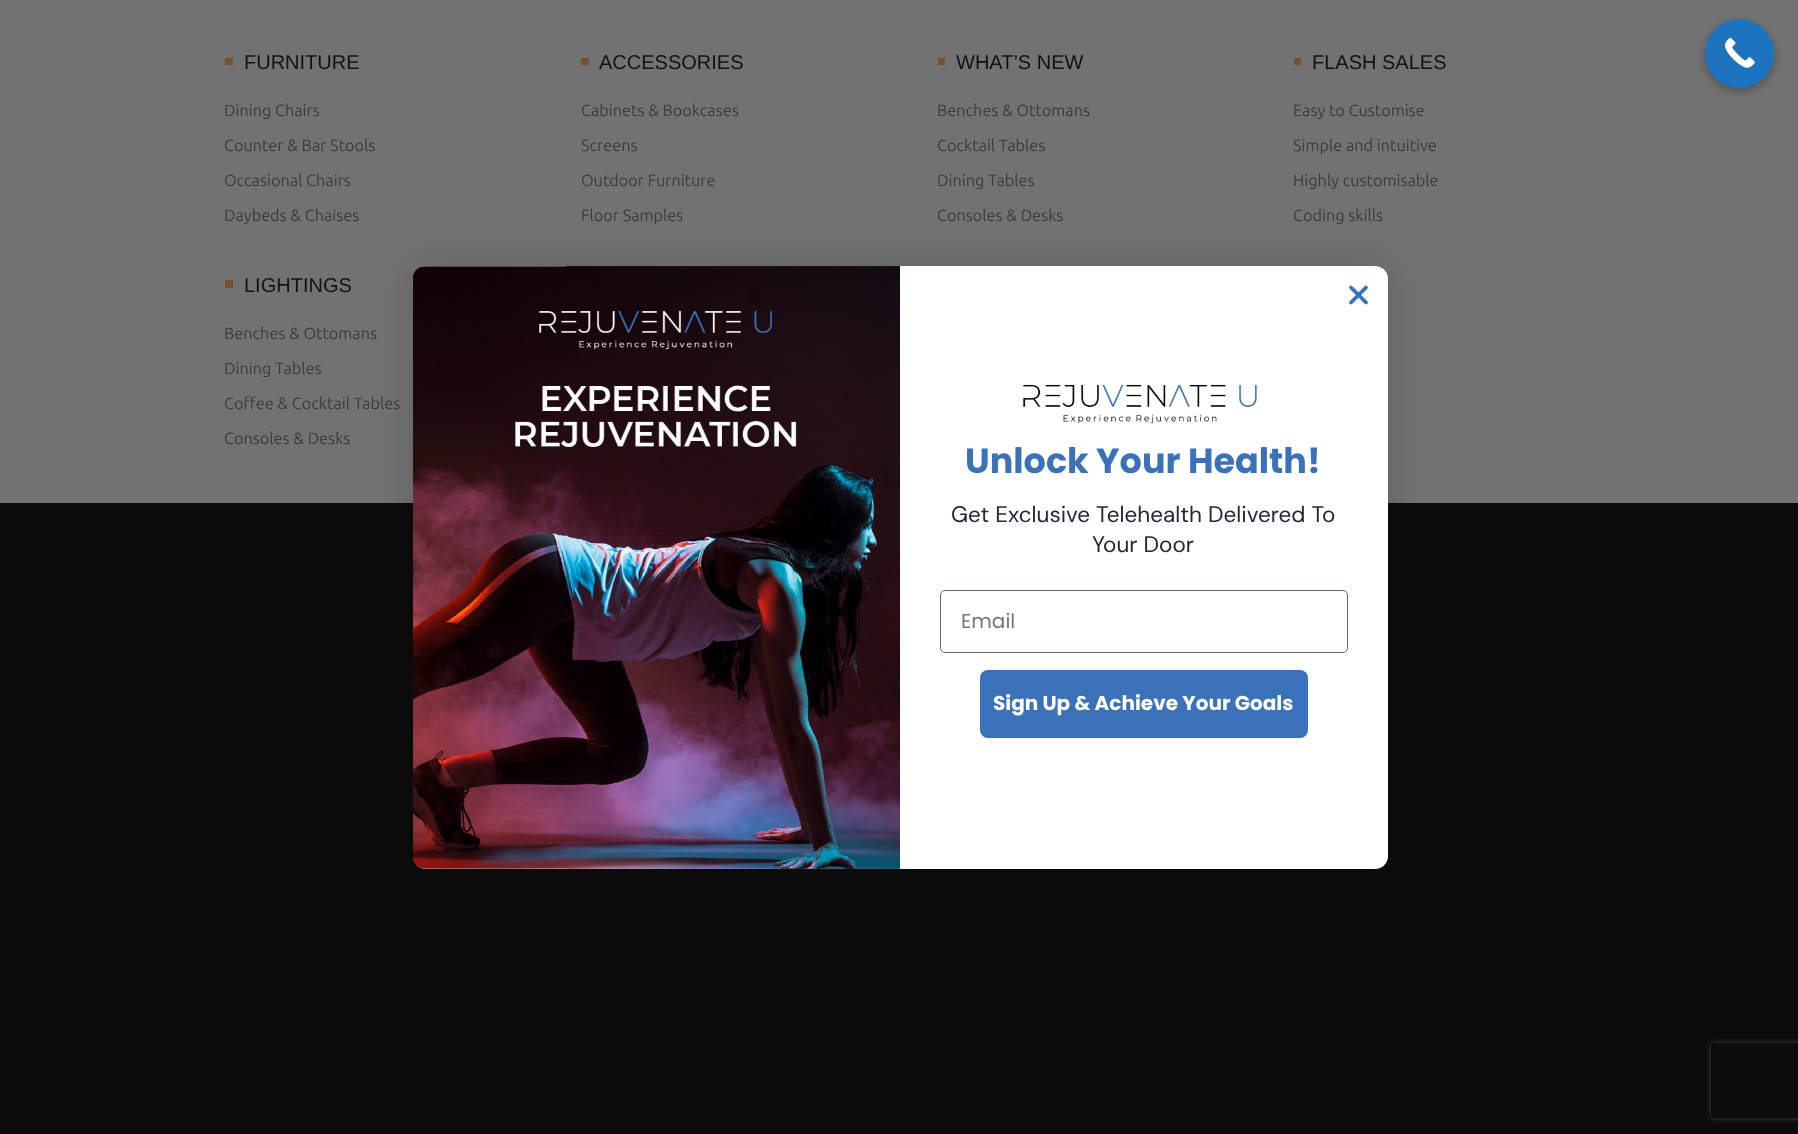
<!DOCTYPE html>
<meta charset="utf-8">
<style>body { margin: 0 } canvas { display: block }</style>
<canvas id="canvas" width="1798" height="1134"></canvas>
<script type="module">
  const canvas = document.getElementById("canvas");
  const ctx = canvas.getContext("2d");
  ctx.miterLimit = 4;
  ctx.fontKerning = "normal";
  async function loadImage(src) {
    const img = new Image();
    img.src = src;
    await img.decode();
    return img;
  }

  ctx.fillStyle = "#0c0c0c";
  ctx.fillRect(0, 0, 1798, 1134);
  ctx.fillStyle = "#727272";
  ctx.fillRect(0, 0, 1798, 503);
  ctx.fillStyle = "#725331";
  ctx.fillRect(225, 58, 8, 7);
  ctx.font = "20px Liberation Sans";
  ctx.fillStyle = "#121212";
  ctx.fillText("FURNITURE", 244, 69);
  ctx.font = "16.25px Ubuntu";
  ctx.fillStyle = "#3c3c3c";
  ctx.fillText("Dining Chairs", 224, 116);
  ctx.fillText("Counter & Bar Stools", 224, 151);
  ctx.fillText("Occasional Chairs", 224, 186);
  ctx.fillText("Daybeds & Chaises", 224, 221);
  ctx.fillStyle = "#725331";
  ctx.fillRect(225, 280, 8, 8);
  ctx.font = "20px Liberation Sans";
  ctx.fillStyle = "#121212";
  ctx.fillText("LIGHTINGS", 244, 292);
  ctx.font = "16.25px Ubuntu";
  ctx.fillStyle = "#3c3c3c";
  ctx.fillText("Benches & Ottomans", 224, 339);
  ctx.fillText("Dining Tables", 224, 374);
  ctx.fillText("Coffee & Cocktail Tables", 224, 409);
  ctx.fillText("Consoles & Desks", 224, 444);
  ctx.fillStyle = "#725331";
  ctx.fillRect(581, 58, 8, 7);
  ctx.font = "20px Liberation Sans";
  ctx.fillStyle = "#121212";
  ctx.fillText("ACCESSORIES", 599, 69);
  ctx.font = "16.25px Ubuntu";
  ctx.fillStyle = "#3c3c3c";
  ctx.fillText("Cabinets & Bookcases", 581, 116);
  ctx.fillText("Screens", 581, 151);
  ctx.fillText("Outdoor Furniture", 581, 186);
  ctx.fillText("Floor Samples", 581, 221);
  ctx.fillStyle = "#725331";
  ctx.fillRect(938, 58, 7, 7);
  ctx.font = "20px Liberation Sans";
  ctx.fillStyle = "#121212";
  ctx.fillText("WHAT’S NEW", 956, 69);
  ctx.font = "16.25px Ubuntu";
  ctx.fillStyle = "#3c3c3c";
  ctx.fillText("Benches & Ottomans", 937, 116);
  ctx.fillText("Cocktail Tables", 937, 151);
  ctx.fillText("Dining Tables", 937, 186);
  ctx.fillText("Consoles & Desks", 937, 221);
  ctx.fillStyle = "#725331";
  ctx.fillRect(1294, 58, 7, 7);
  ctx.font = "20px Liberation Sans";
  ctx.fillStyle = "#121212";
  ctx.fillText("FLASH SALES", 1312, 69);
  ctx.font = "16.25px Ubuntu";
  ctx.fillStyle = "#3c3c3c";
  ctx.fillText("Easy to Customise", 1293, 116);
  ctx.fillText("Simple and intuitive", 1293, 151);
  ctx.fillText("Highly customisable", 1293, 186);
  ctx.fillText("Coding skills", 1293, 221);
  ctx.fillStyle = "rgba(0, 0, 0, 0.3)";
  ctx.filter = "blur(4px)";
  ctx.beginPath();
  ctx.roundRect(1705, 23, 69, 68, 34);
  ctx.fill();
  ctx.filter = "none";
  ctx.fillStyle = "#1e73be";
  ctx.beginPath();
  ctx.arc(1739.5, 53.5, 34.5, 0, Math.PI * 2);
  ctx.fill();
  ctx.drawImage(await loadImage("img1.png"), 1724, 37, 31, 31);
  ctx.fillStyle = "rgba(0, 0, 0, 0.15)";
  ctx.filter = "blur(19px)";
  ctx.beginPath();
  ctx.roundRect(413, 266, 975, 603, 13);
  ctx.fill();
  ctx.filter = "none";
  ctx.fillStyle = "#ffffff";
  ctx.beginPath();
  ctx.roundRect(413, 266, 975, 603, 13);
  ctx.fill();
  ctx.beginPath();
  ctx.moveTo(1351, 287.5);
  ctx.lineTo(1366, 302.5);
  ctx.moveTo(1351, 302.5);
  ctx.lineTo(1366, 287.5);
  ctx.closePath();
  ctx.strokeStyle = "#3a71b8";
  ctx.lineWidth = 3.8;
  ctx.lineCap = "round";
  ctx.lineJoin = "round";
  ctx.stroke();
  ctx.drawImage(await loadImage("img2.png"), 413, 266, 487, 603);
  ctx.drawImage(await loadImage("img3.png"), 1023, 384, 234, 40);
  ctx.font = "bold 35px Poppins";
  ctx.fillStyle = "#3a71b8";
  ctx.fillText("Unlock Your Health!", 965, 473);
  ctx.font = "22.5px DM Sans";
  ctx.fillStyle = "#24263a";
  ctx.fillText("Get Exclusive Telehealth Delivered To", 951, 522);
  ctx.fillText("Your Door", 1092, 552);
  ctx.beginPath();
  ctx.roundRect(940.5, 590.5, 407, 62, 4.5);
  ctx.strokeStyle = "#606a72";
  ctx.lineWidth = 1;
  ctx.lineJoin = "miter";
  ctx.stroke();
  ctx.font = "20px Poppins";
  ctx.fillStyle = "#767676";
  ctx.fillText("Email", 961, 628);
  ctx.fillStyle = "#3a71b8";
  ctx.beginPath();
  ctx.roundRect(980, 670, 328, 68, 8);
  ctx.fill();
  ctx.font = "bold 20px Poppins";
  ctx.fillStyle = "#ffffff";
  ctx.fillText("Sign Up & Achieve Your Goals", 993, 710);
  ctx.save();
  ctx.beginPath();
  ctx.moveTo(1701, 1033);
  ctx.lineTo(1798, 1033);
  ctx.lineTo(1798, 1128);
  ctx.lineTo(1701, 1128);
  ctx.closePath();
  ctx.moveTo(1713.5, 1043);
  ctx.lineTo(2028.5, 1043);
  ctx.bezierCurveTo(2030, 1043, 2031, 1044, 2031, 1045.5);
  ctx.lineTo(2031, 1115.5);
  ctx.bezierCurveTo(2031, 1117, 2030, 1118, 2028.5, 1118);
  ctx.lineTo(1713.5, 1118);
  ctx.bezierCurveTo(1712, 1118, 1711, 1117, 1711, 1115.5);
  ctx.lineTo(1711, 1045.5);
  ctx.bezierCurveTo(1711, 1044, 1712, 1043, 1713.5, 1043);
  ctx.closePath();
  ctx.clip("evenodd");
  ctx.fillStyle = "#3f3f3f";
  ctx.filter = "blur(3px)";
  ctx.beginPath();
  ctx.roundRect(1711, 1043, 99, 75, 2.5);
  ctx.fill();
  ctx.filter = "none";
  ctx.restore();
</script>
